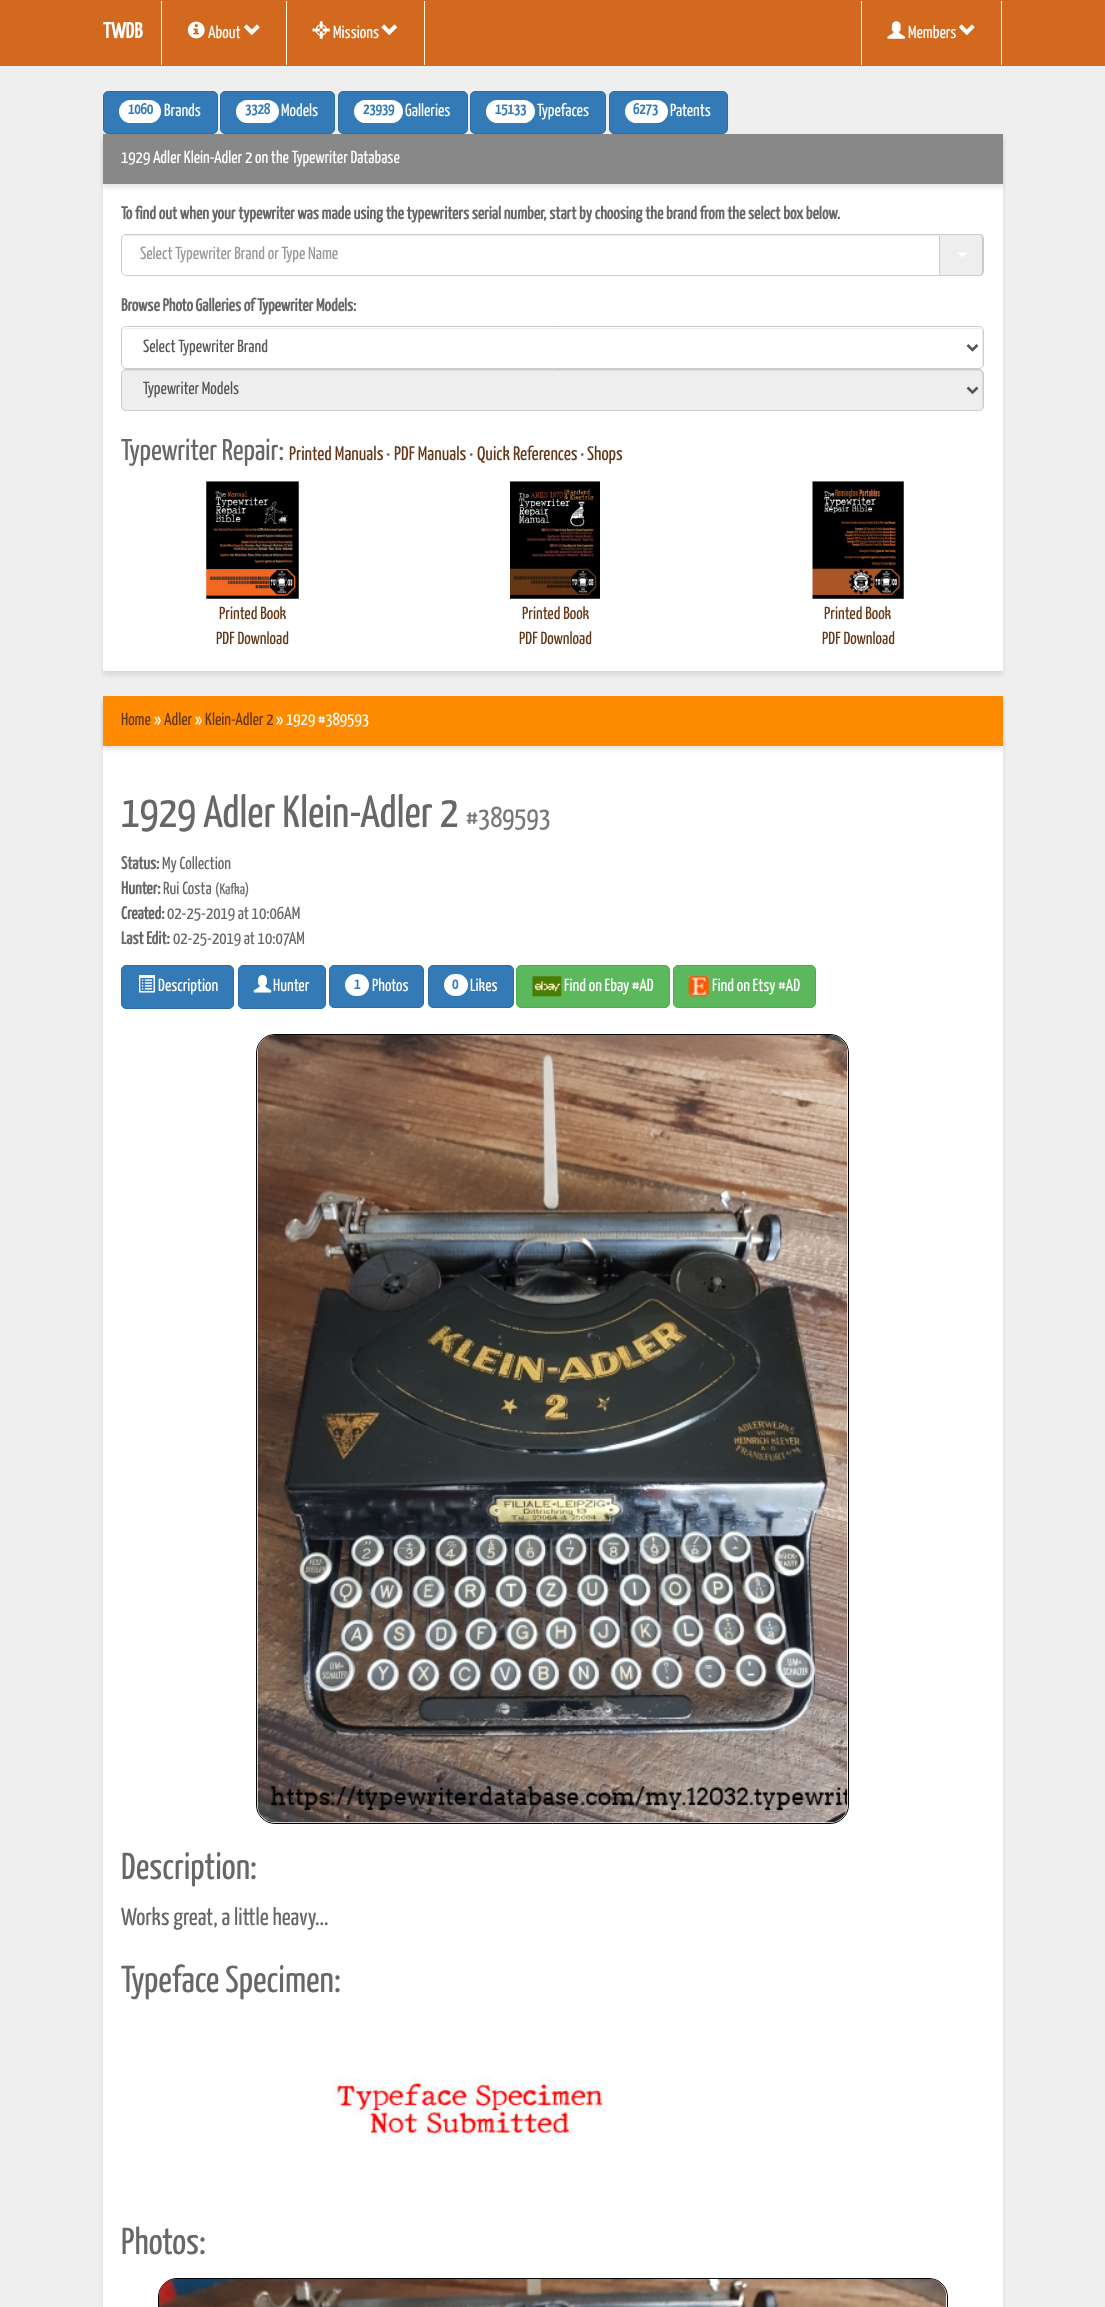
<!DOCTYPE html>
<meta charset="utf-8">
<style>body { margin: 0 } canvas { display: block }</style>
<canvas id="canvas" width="1105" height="2307"></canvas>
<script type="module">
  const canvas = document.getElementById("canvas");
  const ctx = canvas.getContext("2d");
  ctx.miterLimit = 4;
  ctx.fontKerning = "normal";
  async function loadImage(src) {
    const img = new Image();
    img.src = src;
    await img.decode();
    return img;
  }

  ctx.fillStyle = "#efefef";
  ctx.fillRect(0, 0, 1105, 2307);
  ctx.fillStyle = "#d2691e";
  ctx.fillRect(0, 0, 1105, 66);
  ctx.font = "bold 22px Yanone Kaffeesatz";
  ctx.fillStyle = "#ffffff";
  ctx.fillText("TWDB", 103, 38);
  ctx.fillStyle = "#fff8dc";
  ctx.fillRect(161, 1, 1, 64);
  ctx.drawImage(await loadImage("img1.png"), 187, 21, 18, 18);
  ctx.font = "17.5px Yanone Kaffeesatz";
  ctx.fillStyle = "#ffffff";
  ctx.fillText("About", 208, 38);
  ctx.drawImage(await loadImage("img2.png"), 243, 24, 17, 12);
  ctx.fillStyle = "#fff8dc";
  ctx.fillRect(424, 1, 1, 64);
  ctx.fillRect(286, 1, 1, 64);
  ctx.drawImage(await loadImage("img3.png"), 312, 21, 18, 18);
  ctx.fillStyle = "#ffffff";
  ctx.fillText("Missions", 333, 38);
  ctx.drawImage(await loadImage("img4.png"), 381, 24, 17, 12);
  ctx.fillStyle = "#fff8dc";
  ctx.fillRect(1001, 1, 1, 64);
  ctx.fillRect(861, 1, 1, 64);
  ctx.drawImage(await loadImage("img5.png"), 887, 21, 18, 18);
  ctx.fillStyle = "#ffffff";
  ctx.fillText("Members", 908, 38);
  ctx.drawImage(await loadImage("img2.png"), 958, 24, 17, 12);
  ctx.fillStyle = "#337ab7";
  ctx.beginPath();
  ctx.roundRect(103.5, 91.5, 114, 42, 4.5);
  ctx.fill();
  ctx.strokeStyle = "#2e6da4";
  ctx.stroke();
  ctx.fillStyle = "#ffffff";
  ctx.beginPath();
  ctx.roundRect(119, 100, 42, 23, 11.5);
  ctx.fill();
  ctx.font = "bold 15px Yanone Kaffeesatz";
  ctx.fillStyle = "#337ab7";
  ctx.fillText("1060", 128, 114);
  ctx.font = "17.5px Yanone Kaffeesatz";
  ctx.fillStyle = "#ffffff";
  ctx.fillText("Brands", 164, 116);
  ctx.fillStyle = "#337ab7";
  ctx.beginPath();
  ctx.roundRect(220.5, 91.5, 114, 42, 4.5);
  ctx.fill();
  ctx.stroke();
  ctx.fillStyle = "#ffffff";
  ctx.beginPath();
  ctx.roundRect(236, 100, 43, 23, 11.5);
  ctx.fill();
  ctx.font = "bold 15px Yanone Kaffeesatz";
  ctx.fillStyle = "#337ab7";
  ctx.fillText("3328", 245, 114);
  ctx.font = "17.5px Yanone Kaffeesatz";
  ctx.fillStyle = "#ffffff";
  ctx.fillText("Models", 281, 116);
  ctx.fillStyle = "#337ab7";
  ctx.beginPath();
  ctx.roundRect(338.5, 91.5, 129, 42, 4.5);
  ctx.fill();
  ctx.stroke();
  ctx.fillStyle = "#ffffff";
  ctx.beginPath();
  ctx.roundRect(354, 100, 49, 23, 11.5);
  ctx.fill();
  ctx.font = "bold 15px Yanone Kaffeesatz";
  ctx.fillStyle = "#337ab7";
  ctx.fillText("23939", 363, 114);
  ctx.font = "17.5px Yanone Kaffeesatz";
  ctx.fillStyle = "#ffffff";
  ctx.fillText("Galleries", 405, 116);
  ctx.fillStyle = "#337ab7";
  ctx.beginPath();
  ctx.roundRect(470.5, 91.5, 135, 42, 4.5);
  ctx.fill();
  ctx.stroke();
  ctx.fillStyle = "#ffffff";
  ctx.beginPath();
  ctx.roundRect(486, 100, 49, 23, 11.5);
  ctx.fill();
  ctx.font = "bold 15px Yanone Kaffeesatz";
  ctx.fillStyle = "#337ab7";
  ctx.fillText("15133", 495, 114);
  ctx.font = "17.5px Yanone Kaffeesatz";
  ctx.fillStyle = "#ffffff";
  ctx.fillText("Typefaces", 537, 116);
  ctx.fillStyle = "#337ab7";
  ctx.beginPath();
  ctx.roundRect(609.5, 91.5, 118, 42, 4.5);
  ctx.fill();
  ctx.stroke();
  ctx.fillStyle = "#ffffff";
  ctx.beginPath();
  ctx.roundRect(625, 100, 43, 23, 11.5);
  ctx.fill();
  ctx.font = "bold 15px Yanone Kaffeesatz";
  ctx.fillStyle = "#337ab7";
  ctx.fillText("6273", 633, 114);
  ctx.font = "17.5px Yanone Kaffeesatz";
  ctx.fillStyle = "#ffffff";
  ctx.fillText("Patents", 670, 116);
  ctx.fillStyle = "rgba(0, 0, 0, 0.09)";
  ctx.filter = "blur(2px)";
  ctx.beginPath();
  ctx.rect(103, 138, 900, 537);
  ctx.fill();
  ctx.filter = "none";
  ctx.fillStyle = "#ffffff";
  ctx.fillRect(103, 184, 900, 487);
  ctx.fillStyle = "rgba(0, 0, 0, 0.09)";
  ctx.filter = "blur(2px)";
  ctx.beginPath();
  ctx.rect(103, 138, 900, 50);
  ctx.fill();
  ctx.filter = "none";
  ctx.fillStyle = "#888888";
  ctx.fillRect(103, 134, 900, 50);
  ctx.fillStyle = "#ffffff";
  ctx.fillText("1929 Adler Klein-Adler 2 on the Typewriter Database", 121, 163);
  ctx.font = "bold 17.5px Yanone Kaffeesatz";
  ctx.fillStyle = "#676767";
  ctx.fillText("To find out when your typewriter was made using the typewriters serial number, start by choosing the brand from the select box below.", 121, 219);
  ctx.fillStyle = "#ececec";
  ctx.beginPath();
  ctx.moveTo(126, 236);
  ctx.lineTo(939, 236);
  ctx.lineTo(939, 235);
  ctx.lineTo(127, 235);
  ctx.bezierCurveTo(126, 235, 124, 236, 124, 237);
  ctx.closePath();
  ctx.fill();
  ctx.beginPath();
  ctx.roundRect(121.5, 234.5, 818, 41, [4.5, 0, 0, 4.5]);
  ctx.strokeStyle = "#cccccc";
  ctx.stroke();
  ctx.font = "17.5px Yanone Kaffeesatz";
  ctx.fillStyle = "#999999";
  ctx.fillText("Select Typewriter Brand or Type Name", 140, 259);
  ctx.fillStyle = "#eeeeee";
  ctx.beginPath();
  ctx.roundRect(940, 234, 44, 42, [0, 5, 5, 0]);
  ctx.fill();
  ctx.fillStyle = "#cccccc";
  ctx.beginPath();
  ctx.moveTo(940, 234);
  ctx.lineTo(979, 234);
  ctx.bezierCurveTo(982, 234, 984, 236, 984, 239);
  ctx.lineTo(984, 271);
  ctx.bezierCurveTo(984, 274, 982, 276, 979, 276);
  ctx.lineTo(940, 276);
  ctx.closePath();
  ctx.moveTo(940, 235);
  ctx.lineTo(979, 235);
  ctx.bezierCurveTo(981, 235, 982, 237, 982, 239);
  ctx.lineTo(982, 271);
  ctx.bezierCurveTo(982, 273, 981, 275, 979, 275);
  ctx.lineTo(940, 275);
  ctx.closePath();
  ctx.fill("evenodd");
  ctx.fillStyle = "#ffffff";
  ctx.beginPath();
  ctx.moveTo(957.5, 252.5);
  ctx.lineTo(967.5, 252.5);
  ctx.lineTo(962.5, 257.5);
  ctx.closePath();
  ctx.fill();
  ctx.font = "bold 17.5px Yanone Kaffeesatz";
  ctx.fillStyle = "#676767";
  ctx.fillText("Browse Photo Galleries of Typewriter Models:", 121, 311);
  ctx.fillStyle = "#ececec";
  ctx.beginPath();
  ctx.moveTo(126, 329);
  ctx.lineTo(979, 329);
  ctx.bezierCurveTo(981, 329, 982, 330, 982, 332);
  ctx.lineTo(982, 367);
  ctx.bezierCurveTo(982, 366, 983, 365, 983, 364);
  ctx.lineTo(983, 332);
  ctx.bezierCurveTo(983, 330, 981, 328, 979, 328);
  ctx.lineTo(127, 328);
  ctx.bezierCurveTo(126, 328, 125, 329, 124, 329);
  ctx.closePath();
  ctx.fill();
  ctx.beginPath();
  ctx.roundRect(121.5, 326.5, 862, 42, 4.5);
  ctx.stroke();
  ctx.beginPath();
  ctx.moveTo(967.5, 345);
  ctx.lineTo(972.5, 350);
  ctx.lineTo(977.5, 345);
  ctx.strokeStyle = "#555555";
  ctx.lineWidth = 2.5;
  ctx.stroke();
  ctx.font = "17.5px Yanone Kaffeesatz";
  ctx.fillStyle = "#555555";
  ctx.fillText("Select Typewriter Brand", 143, 352);
  ctx.fillStyle = "#eeeeee";
  ctx.beginPath();
  ctx.roundRect(121, 369, 863, 42, 5);
  ctx.fill();
  ctx.fillStyle = "#dcdcdc";
  ctx.beginPath();
  ctx.moveTo(126, 371);
  ctx.lineTo(979, 371);
  ctx.bezierCurveTo(981, 371, 982, 373, 982, 375);
  ctx.lineTo(982, 409);
  ctx.bezierCurveTo(983, 408, 983, 407, 983, 406);
  ctx.lineTo(983, 374);
  ctx.bezierCurveTo(983, 372, 981, 370, 979, 370);
  ctx.lineTo(127, 370);
  ctx.bezierCurveTo(126, 370, 124, 371, 124, 372);
  ctx.closePath();
  ctx.fill();
  ctx.beginPath();
  ctx.roundRect(121.5, 369.5, 862, 41, 4.5);
  ctx.strokeStyle = "#cccccc";
  ctx.lineWidth = 1;
  ctx.stroke();
  ctx.beginPath();
  ctx.moveTo(967.5, 387.5);
  ctx.lineTo(972.5, 392.5);
  ctx.lineTo(977.5, 387.5);
  ctx.strokeStyle = "#555555";
  ctx.lineWidth = 2.5;
  ctx.stroke();
  ctx.fillStyle = "#555555";
  ctx.fillText("Typewriter Models", 143, 394);
  ctx.font = "30px Yanone Kaffeesatz";
  ctx.fillStyle = "#676767";
  ctx.fillText("Typewriter Repair:", 121, 460);
  ctx.font = "19.5px Yanone Kaffeesatz";
  ctx.fillStyle = "#643615";
  ctx.fillText("Printed Manuals", 289, 460);
  ctx.fillStyle = "#777777";
  ctx.fillText("•", 386, 460);
  ctx.fillStyle = "#643615";
  ctx.fillText("PDF Manuals", 394, 460);
  ctx.fillStyle = "#777777";
  ctx.fillText("•", 469, 460);
  ctx.fillStyle = "#643615";
  ctx.fillText("Quick References", 477, 460);
  ctx.fillStyle = "#777777";
  ctx.fillText("•", 580, 460);
  ctx.fillStyle = "#643615";
  ctx.fillText("Shops", 587, 460);
  ctx.drawImage(await loadImage("img6.png"), 206, 481, 93, 118);
  ctx.font = "17.5px Yanone Kaffeesatz";
  ctx.fillText("Printed Book", 219, 619);
  ctx.fillText("PDF Download", 216, 644);
  ctx.drawImage(await loadImage("img7.png"), 510, 481, 90, 118);
  ctx.fillText("Printed Book", 522, 619);
  ctx.fillText("PDF Download", 519, 644);
  ctx.drawImage(await loadImage("img8.png"), 812, 481, 92, 118);
  ctx.fillText("Printed Book", 824, 619);
  ctx.fillText("PDF Download", 822, 644);
  ctx.fillStyle = "rgba(0, 0, 0, 0.09)";
  ctx.filter = "blur(2px)";
  ctx.beginPath();
  ctx.rect(103, 700, 900, 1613);
  ctx.fill();
  ctx.filter = "none";
  ctx.fillStyle = "#ffffff";
  ctx.fillRect(103, 746, 900, 1561);
  ctx.fillStyle = "rgba(0, 0, 0, 0.09)";
  ctx.filter = "blur(2px)";
  ctx.beginPath();
  ctx.rect(103, 700, 900, 50);
  ctx.fill();
  ctx.filter = "none";
  ctx.fillStyle = "#ff8c00";
  ctx.fillRect(103, 696, 900, 50);
  ctx.fillStyle = "#643615";
  ctx.fillText("Home", 121, 725);
  ctx.fillStyle = "#ffffff";
  ctx.fillText("»", 154, 725);
  ctx.fillStyle = "#643615";
  ctx.fillText("Adler", 164, 725);
  ctx.fillStyle = "#ffffff";
  ctx.fillText("»", 195, 725);
  ctx.fillStyle = "#643615";
  ctx.fillText("Klein-Adler 2", 205, 725);
  ctx.fillStyle = "#ffffff";
  ctx.fillText("» 1929 #389593", 276, 725);
  ctx.font = "45px Yanone Kaffeesatz";
  ctx.fillStyle = "#676767";
  ctx.fillText("1929 Adler Klein-Adler 2", 121, 827);
  ctx.font = "29px Yanone Kaffeesatz";
  ctx.fillStyle = "#777777";
  ctx.fillText("#389593", 466, 827);
  ctx.font = "bold 17.5px Yanone Kaffeesatz";
  ctx.fillStyle = "#676767";
  ctx.fillText("Status:", 121, 869);
  ctx.font = "17.5px Yanone Kaffeesatz";
  ctx.fillText("My Collection", 162, 869);
  ctx.font = "bold 17.5px Yanone Kaffeesatz";
  ctx.fillText("Hunter:", 121, 894);
  ctx.font = "17.5px Yanone Kaffeesatz";
  ctx.fillText("Rui Costa", 163, 894);
  ctx.font = "15px Yanone Kaffeesatz";
  ctx.fillText("(Kafka)", 215, 894);
  ctx.font = "bold 17.5px Yanone Kaffeesatz";
  ctx.fillText("Created:", 121, 919);
  ctx.font = "17.5px Yanone Kaffeesatz";
  ctx.fillText("02-25-2019 at 10:06AM", 167, 919);
  ctx.font = "bold 17.5px Yanone Kaffeesatz";
  ctx.fillText("Last Edit:", 121, 944);
  ctx.font = "17.5px Yanone Kaffeesatz";
  ctx.fillText("02-25-2019 at 10:07AM", 173, 944);
  ctx.fillStyle = "#337ab7";
  ctx.beginPath();
  ctx.roundRect(121.5, 965.5, 112, 43, 4.5);
  ctx.fill();
  ctx.strokeStyle = "#2e6da4";
  ctx.lineWidth = 1;
  ctx.stroke();
  ctx.drawImage(await loadImage("img9.png"), 138, 975, 17, 18);
  ctx.fillStyle = "#ffffff";
  ctx.fillText("Description", 158, 991);
  ctx.fillStyle = "#337ab7";
  ctx.beginPath();
  ctx.roundRect(238.5, 965.5, 87, 43, 4.5);
  ctx.fill();
  ctx.stroke();
  ctx.drawImage(await loadImage("img10.png"), 253, 975, 19, 18);
  ctx.fillStyle = "#ffffff";
  ctx.fillText("Hunter", 273, 991);
  ctx.fillStyle = "#337ab7";
  ctx.beginPath();
  ctx.roundRect(329.5, 965.5, 94, 42, 4.5);
  ctx.fill();
  ctx.stroke();
  ctx.fillStyle = "#ffffff";
  ctx.beginPath();
  ctx.roundRect(345, 974, 24, 22, 11);
  ctx.fill();
  ctx.font = "bold 15px Yanone Kaffeesatz";
  ctx.fillStyle = "#337ab7";
  ctx.fillText("1", 354, 989);
  ctx.font = "17.5px Yanone Kaffeesatz";
  ctx.fillStyle = "#ffffff";
  ctx.fillText("Photos", 372, 991);
  ctx.fillStyle = "#337ab7";
  ctx.beginPath();
  ctx.roundRect(428.5, 965.5, 85, 42, 4.5);
  ctx.fill();
  ctx.stroke();
  ctx.fillStyle = "#ffffff";
  ctx.beginPath();
  ctx.roundRect(444, 974, 24, 22, 11);
  ctx.fill();
  ctx.font = "bold 15px Yanone Kaffeesatz";
  ctx.fillStyle = "#337ab7";
  ctx.fillText("0", 452, 989);
  ctx.font = "17.5px Yanone Kaffeesatz";
  ctx.fillStyle = "#ffffff";
  ctx.fillText("Likes", 470, 991);
  ctx.fillStyle = "#5cb85c";
  ctx.beginPath();
  ctx.roundRect(516.5, 965.5, 153, 42, 4.5);
  ctx.fill();
  ctx.strokeStyle = "#4cae4c";
  ctx.stroke();
  ctx.drawImage(await loadImage("img11.png"), 532, 976, 30, 21);
  ctx.fillStyle = "#ffffff";
  ctx.fillText("Find on Ebay #AD", 564, 991);
  ctx.fillStyle = "#5cb85c";
  ctx.beginPath();
  ctx.roundRect(673.5, 965.5, 142, 42, 4.5);
  ctx.fill();
  ctx.stroke();
  ctx.drawImage(await loadImage("img12.png"), 688, 976, 21, 21);
  ctx.fillStyle = "#ffffff";
  ctx.fillText("Find on Etsy #AD", 712, 991);
  ctx.beginPath();
  ctx.roundRect(256.5, 1034.5, 592, 789, 18.5);
  ctx.strokeStyle = "#000000";
  ctx.stroke();
  ctx.drawImage(await loadImage("img13.png"), 257, 1035, 591, 788);
  ctx.font = "37.5px Yanone Kaffeesatz";
  ctx.fillStyle = "#676767";
  ctx.fillText("Description:", 121, 1879);
  ctx.font = "24.5px Yanone Kaffeesatz";
  ctx.fillText("Works great, a little heavy...", 121, 1925);
  ctx.font = "37.5px Yanone Kaffeesatz";
  ctx.fillText("Typeface Specimen:", 121, 1992);
  ctx.drawImage(await loadImage("img14.png"), 331, 2076, 278, 61);
  ctx.fillText("Photos:", 121, 2254);
  ctx.beginPath();
  ctx.roundRect(158.5, 2278.5, 789, 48, 18.5);
  ctx.stroke();
  ctx.drawImage(await loadImage("img15.png"), 158, 2278, 789, 29);
</script>
